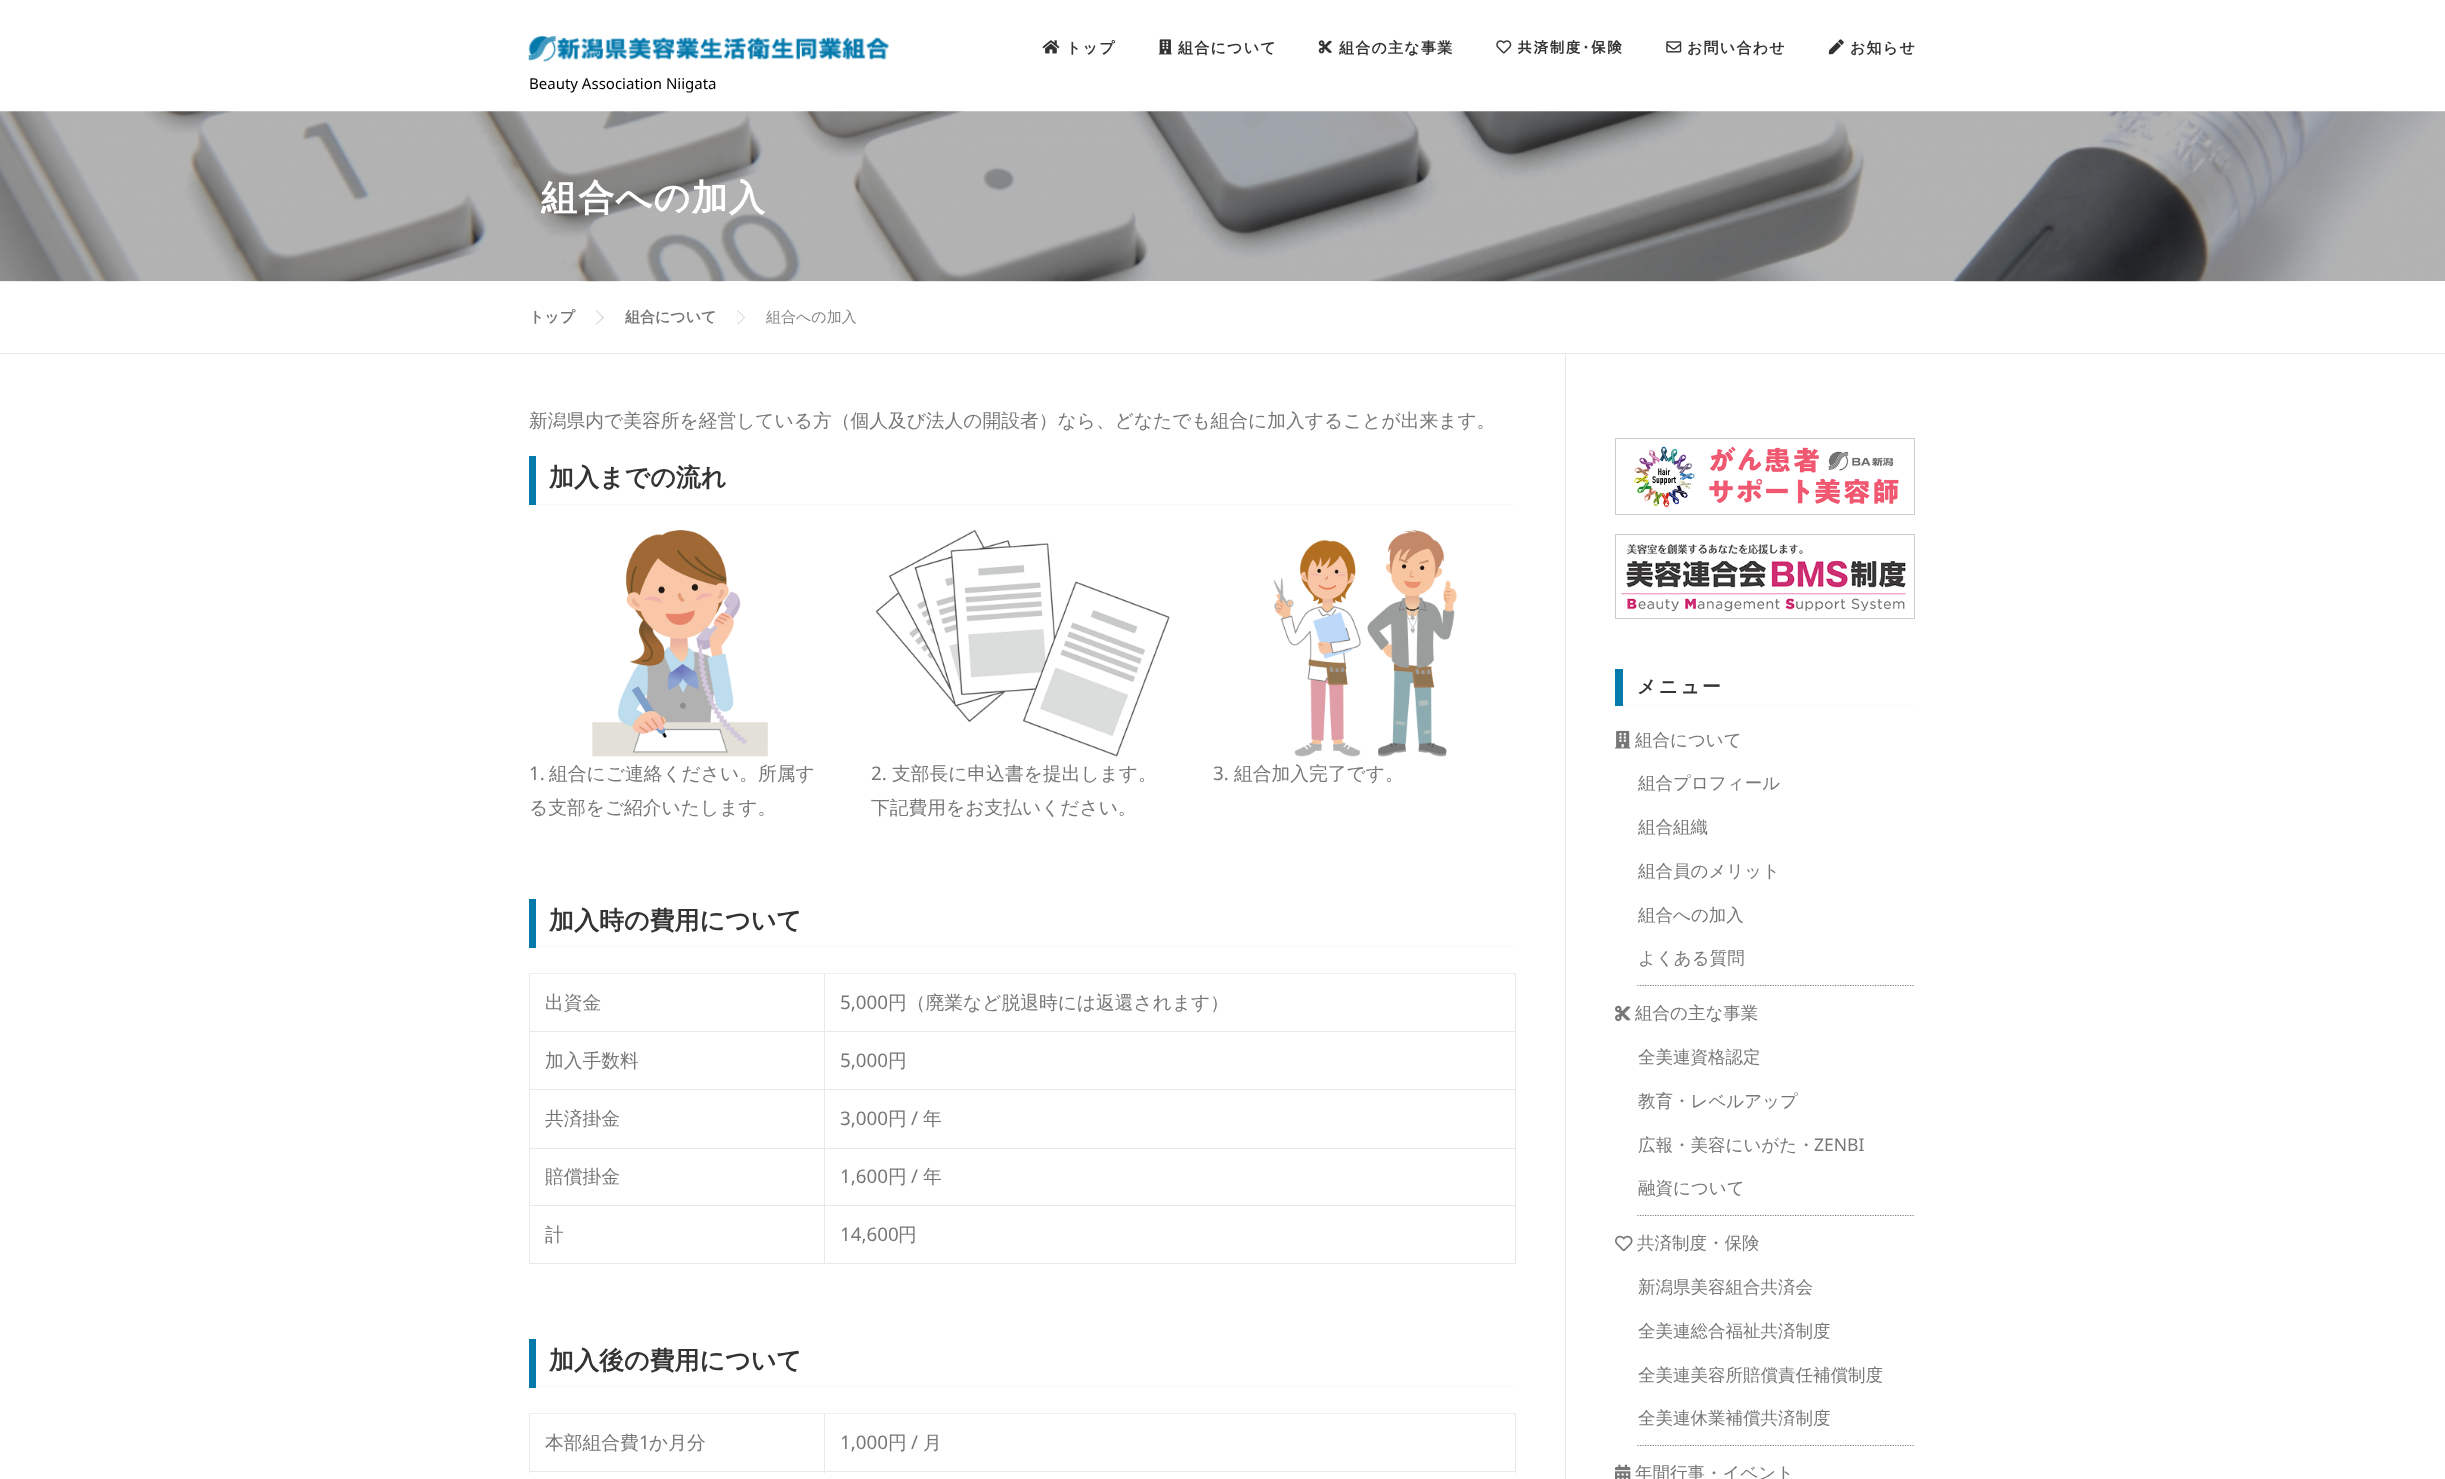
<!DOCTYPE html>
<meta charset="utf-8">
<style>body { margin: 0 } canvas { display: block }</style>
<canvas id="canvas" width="2445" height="1479"></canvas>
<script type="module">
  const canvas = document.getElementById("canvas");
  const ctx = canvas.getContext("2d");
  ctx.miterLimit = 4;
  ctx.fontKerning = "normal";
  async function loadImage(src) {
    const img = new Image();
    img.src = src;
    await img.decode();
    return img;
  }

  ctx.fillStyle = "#ffffff";
  ctx.fillRect(0, 0, 2445, 1479);
  ctx.drawImage(await loadImage("img1.png"), 1042, 40, 18, 14);
  ctx.letterSpacing = "1.25px";
  ctx.font = "bold 15px WenQuanYi Zen Hei";
  ctx.fillStyle = "#333333";
  ctx.fillText("トップ", 1066, 53);
  ctx.drawImage(await loadImage("img2.png"), 1158, 39, 14, 16);
  ctx.fillText("組合について", 1178, 53);
  ctx.drawImage(await loadImage("img3.png"), 1318, 40, 14, 14);
  ctx.fillText("組合の主な事業", 1339, 53);
  ctx.drawImage(await loadImage("img4.png"), 1496, 40, 16, 14);
  ctx.font = "bold 15px IPAPGothic";
  ctx.fillText("共済制度･保険", 1517, 53);
  ctx.drawImage(await loadImage("img5.png"), 1666, 41, 16, 12);
  ctx.font = "bold 15px WenQuanYi Zen Hei";
  ctx.fillText("お問い合わせ", 1687, 53);
  ctx.drawImage(await loadImage("img6.png"), 1828, 39, 16, 16);
  ctx.fillText("お知らせ", 1850, 53);
  ctx.drawImage(await loadImage("img7.png"), 528, 36, 361, 26);
  ctx.letterSpacing = "0px";
  ctx.font = "15px Noto Sans";
  ctx.fillStyle = "#000000";
  ctx.fillText("Beauty Association Niigata", 529, 89);
  ctx.drawImage(await loadImage("img8.png"), 0, 111, 2445, 171);
  ctx.letterSpacing = "1.25px";
  ctx.font = "bold 36px WenQuanYi Zen Hei";
  ctx.fillStyle = "#ffffff";
  ctx.fillText("組合への加入", 541, 210);
  ctx.fillStyle = "#e9e9e9";
  ctx.fillRect(0, 353, 2445, 1);
  ctx.letterSpacing = "0px";
  ctx.font = "bold 15px WenQuanYi Zen Hei";
  ctx.fillStyle = "#777777";
  ctx.fillText("トップ", 529, 322);
  ctx.fillStyle = "#cccccc";
  ctx.beginPath();
  ctx.moveTo(596, 325);
  ctx.lineTo(596, 310);
  ctx.lineTo(604, 317.5);
  ctx.closePath();
  ctx.fill();
  ctx.fillStyle = "#ffffff";
  ctx.beginPath();
  ctx.moveTo(596, 324);
  ctx.lineTo(596, 311);
  ctx.lineTo(602.5, 317.5);
  ctx.closePath();
  ctx.fill();
  ctx.fillStyle = "#777777";
  ctx.fillText("組合について", 625, 322);
  ctx.fillStyle = "#cccccc";
  ctx.beginPath();
  ctx.moveTo(737.5, 325);
  ctx.lineTo(737.5, 310);
  ctx.lineTo(745, 317.5);
  ctx.closePath();
  ctx.fill();
  ctx.fillStyle = "#ffffff";
  ctx.beginPath();
  ctx.moveTo(737.5, 324);
  ctx.lineTo(737.5, 311);
  ctx.lineTo(744, 317.5);
  ctx.closePath();
  ctx.fill();
  ctx.font = "500 15px WenQuanYi Zen Hei";
  ctx.fillStyle = "#858585";
  ctx.fillText("組合への加入", 766, 322);
  ctx.fillStyle = "#e9e9e9";
  ctx.fillRect(1565, 354, 1, 1125);
  ctx.font = "500 18.75px WenQuanYi Zen Hei";
  ctx.fillStyle = "#777777";
  ctx.fillText("新潟県内で美容所を経営している方（個人及び法人の開設者）なら、どなたでも組合に加入することが出来ます。", 529, 427);
  ctx.fillStyle = "#047aac";
  ctx.fillRect(529, 456, 7, 49);
  ctx.font = "bold 25px WenQuanYi Zen Hei";
  ctx.fillStyle = "#333333";
  ctx.fillText("加入までの流れ", 549, 486);
  ctx.fillStyle = "#f8f9f9";
  ctx.fillRect(536, 504, 980, 1);
  ctx.drawImage(await loadImage("img9.png"), 592, 530, 176, 227);
  ctx.font = "18.75px Noto Sans";
  ctx.fillStyle = "#777777";
  ctx.fillText("1.", 529, 780);
  ctx.font = "500 18.75px WenQuanYi Zen Hei";
  ctx.fillText("組合にご連絡ください。所属す", 549, 780);
  ctx.fillText("る支部をご紹介いたします。", 529, 814);
  ctx.drawImage(await loadImage("img10.png"), 875, 530, 295, 227);
  ctx.font = "18.75px Noto Sans";
  ctx.fillText("2.", 871, 780);
  ctx.font = "500 18.75px WenQuanYi Zen Hei";
  ctx.fillText("支部長に申込書を提出します。", 892, 780);
  ctx.fillText("下記費用をお支払いください。", 871, 814);
  ctx.drawImage(await loadImage("img11.png"), 1273, 530, 184, 227);
  ctx.font = "18.75px Noto Sans";
  ctx.fillText("3.", 1213, 780);
  ctx.font = "500 18.75px WenQuanYi Zen Hei";
  ctx.fillText("組合加入完了です。", 1234, 780);
  ctx.fillStyle = "#047aac";
  ctx.fillRect(529, 899, 7, 49);
  ctx.font = "bold 25px WenQuanYi Zen Hei";
  ctx.fillStyle = "#333333";
  ctx.fillText("加入時の費用について", 549, 929);
  ctx.fillStyle = "#f8f9f9";
  ctx.fillRect(536, 946, 980, 1);
  ctx.fillStyle = "#e9e9e9";
  ctx.fillRect(529, 1263, 987, 1);
  ctx.fillStyle = "#eceeef";
  ctx.fillRect(529, 973, 987, 1);
  ctx.fillStyle = "#e9e9e9";
  ctx.fillRect(1515, 1031, 1, 233);
  ctx.fillRect(1515, 973, 1, 60);
  ctx.fillRect(824, 1205, 1, 59);
  ctx.fillRect(824, 1205, 692, 1);
  ctx.fillRect(824, 1148, 1, 58);
  ctx.fillRect(824, 1148, 692, 1);
  ctx.fillRect(824, 1089, 1, 60);
  ctx.fillRect(824, 1089, 692, 1);
  ctx.fillRect(824, 1031, 1, 59);
  ctx.fillRect(824, 1031, 692, 1);
  ctx.fillRect(824, 973, 1, 60);
  ctx.fillRect(529, 1205, 1, 59);
  ctx.fillRect(529, 1205, 296, 1);
  ctx.fillRect(529, 1148, 1, 58);
  ctx.fillRect(529, 1148, 296, 1);
  ctx.fillRect(529, 1089, 1, 60);
  ctx.fillRect(529, 1089, 296, 1);
  ctx.fillRect(529, 1031, 1, 59);
  ctx.fillRect(529, 1031, 296, 1);
  ctx.fillRect(529, 973, 1, 60);
  ctx.font = "500 18.75px WenQuanYi Zen Hei";
  ctx.fillStyle = "#777777";
  ctx.fillText("出資金", 545, 1009);
  ctx.font = "18.75px Noto Sans";
  ctx.fillText("5,000", 840, 1009);
  ctx.font = "500 18.75px WenQuanYi Zen Hei";
  ctx.fillText("円（廃業など脱退時には返還されます）", 888, 1009);
  ctx.fillText("加入手数料", 545, 1067);
  ctx.font = "18.75px Noto Sans";
  ctx.fillText("5,000", 840, 1067);
  ctx.font = "500 18.75px WenQuanYi Zen Hei";
  ctx.fillText("円", 888, 1067);
  ctx.fillText("共済掛金", 545, 1125);
  ctx.font = "18.75px Noto Sans";
  ctx.fillText("3,000", 840, 1125);
  ctx.font = "500 18.75px WenQuanYi Zen Hei";
  ctx.fillText("円", 888, 1125);
  ctx.font = "18.75px Noto Sans";
  ctx.fillText("/", 911, 1125);
  ctx.font = "500 18.75px WenQuanYi Zen Hei";
  ctx.fillText("年", 923, 1125);
  ctx.fillText("賠償掛金", 545, 1183);
  ctx.font = "18.75px Noto Sans";
  ctx.fillText("1,600", 840, 1183);
  ctx.font = "500 18.75px WenQuanYi Zen Hei";
  ctx.fillText("円", 888, 1183);
  ctx.font = "18.75px Noto Sans";
  ctx.fillText("/", 911, 1183);
  ctx.font = "500 18.75px WenQuanYi Zen Hei";
  ctx.fillText("年", 923, 1183);
  ctx.fillText("計", 545, 1241);
  ctx.font = "18.75px Noto Sans";
  ctx.fillText("14,600", 840, 1241);
  ctx.font = "500 18.75px WenQuanYi Zen Hei";
  ctx.fillText("円", 898, 1241);
  ctx.fillStyle = "#047aac";
  ctx.fillRect(529, 1339, 7, 49);
  ctx.font = "bold 25px WenQuanYi Zen Hei";
  ctx.fillStyle = "#333333";
  ctx.fillText("加入後の費用について", 549, 1369);
  ctx.fillStyle = "#f8f9f9";
  ctx.fillRect(536, 1386, 980, 1);
  ctx.fillStyle = "#e9e9e9";
  ctx.fillRect(529, 1471, 987, 1);
  ctx.fillStyle = "#eceeef";
  ctx.fillRect(529, 1413, 987, 1);
  ctx.fillStyle = "#e9e9e9";
  ctx.fillRect(824, 1413, 1, 60);
  ctx.fillRect(529, 1413, 1, 60);
  ctx.font = "500 18.75px WenQuanYi Zen Hei";
  ctx.fillStyle = "#777777";
  ctx.fillText("本部組合費", 545, 1449);
  ctx.font = "18.75px Noto Sans";
  ctx.fillText("1", 639, 1449);
  ctx.font = "500 18.75px WenQuanYi Zen Hei";
  ctx.fillText("か月分", 649, 1449);
  ctx.fillStyle = "#e9e9e9";
  ctx.fillRect(1515, 1413, 1, 60);
  ctx.font = "18.75px Noto Sans";
  ctx.fillStyle = "#777777";
  ctx.fillText("1,000", 840, 1449);
  ctx.font = "500 18.75px WenQuanYi Zen Hei";
  ctx.fillText("円", 888, 1449);
  ctx.font = "18.75px Noto Sans";
  ctx.fillText("/", 911, 1449);
  ctx.font = "500 18.75px WenQuanYi Zen Hei";
  ctx.fillText("月", 923, 1449);
  ctx.strokeStyle = "#cccccc";
  ctx.strokeRect(1615.5, 438.5, 299, 76);
  ctx.drawImage(await loadImage("img12.png"), 1634, 446, 265, 62);
  ctx.strokeRect(1615.5, 534.5, 299, 84);
  ctx.drawImage(await loadImage("img13.png"), 1621, 544, 285, 68);
  ctx.fillStyle = "#047aac";
  ctx.fillRect(1615, 669, 8, 37);
  ctx.letterSpacing = "2.5px";
  ctx.font = "bold 18.75px WenQuanYi Zen Hei";
  ctx.fillStyle = "#333333";
  ctx.fillText("メニュー", 1637, 693);
  ctx.fillStyle = "#f8f9f9";
  ctx.fillRect(1623, 705, 292, 1);
  ctx.drawImage(await loadImage("img14.png"), 1615, 730, 16, 19);
  ctx.letterSpacing = "0px";
  ctx.font = "500 17.5px WenQuanYi Zen Hei";
  ctx.fillStyle = "#777777";
  ctx.fillText("組合について", 1635, 746);
  ctx.beginPath();
  ctx.moveTo(1637.5, 985.5);
  ctx.lineTo(1915, 985.5);
  ctx.strokeStyle = "#808080";
  ctx.lineWidth = 1.2;
  ctx.setLineDash([1.25, 1.25]);
  ctx.stroke();
  ctx.fillText("組合プロフィール", 1638, 789);
  ctx.fillText("組合組織", 1638, 833);
  ctx.fillText("組合員のメリット", 1638, 877);
  ctx.fillText("組合への加入", 1638, 921);
  ctx.fillText("よくある質問", 1638, 964);
  ctx.drawImage(await loadImage("img15.png"), 1615, 1005, 16, 17);
  ctx.fillText("組合の主な事業", 1635, 1019);
  ctx.beginPath();
  ctx.moveTo(1637.5, 1215.5);
  ctx.lineTo(1915, 1215.5);
  ctx.stroke();
  ctx.fillText("全美連資格認定", 1638, 1063);
  ctx.fillText("教育・レベルアップ", 1638, 1107);
  ctx.fillText("広報・美容にいがた・", 1638, 1151);
  ctx.font = "17.5px Noto Sans";
  ctx.fillText("ZENBI", 1814, 1151);
  ctx.font = "500 17.5px WenQuanYi Zen Hei";
  ctx.fillText("融資について", 1638, 1194);
  ctx.drawImage(await loadImage("img16.png"), 1615, 1235, 18, 17);
  ctx.fillText("共済制度・保険", 1637, 1249);
  ctx.beginPath();
  ctx.moveTo(1637.5, 1445.5);
  ctx.lineTo(1915, 1445.5);
  ctx.stroke();
  ctx.fillText("新潟県美容組合共済会", 1638, 1293);
  ctx.fillText("全美連総合福祉共済制度", 1638, 1337);
  ctx.fillText("全美連美容所賠償責任補償制度", 1638, 1381);
  ctx.fillText("全美連休業補償共済制度", 1638, 1424);
  ctx.drawImage(await loadImage("img17.png"), 1615, 1464, 16, 15);
  ctx.fillText("年間行事・イベント", 1635, 1479);
</script>
